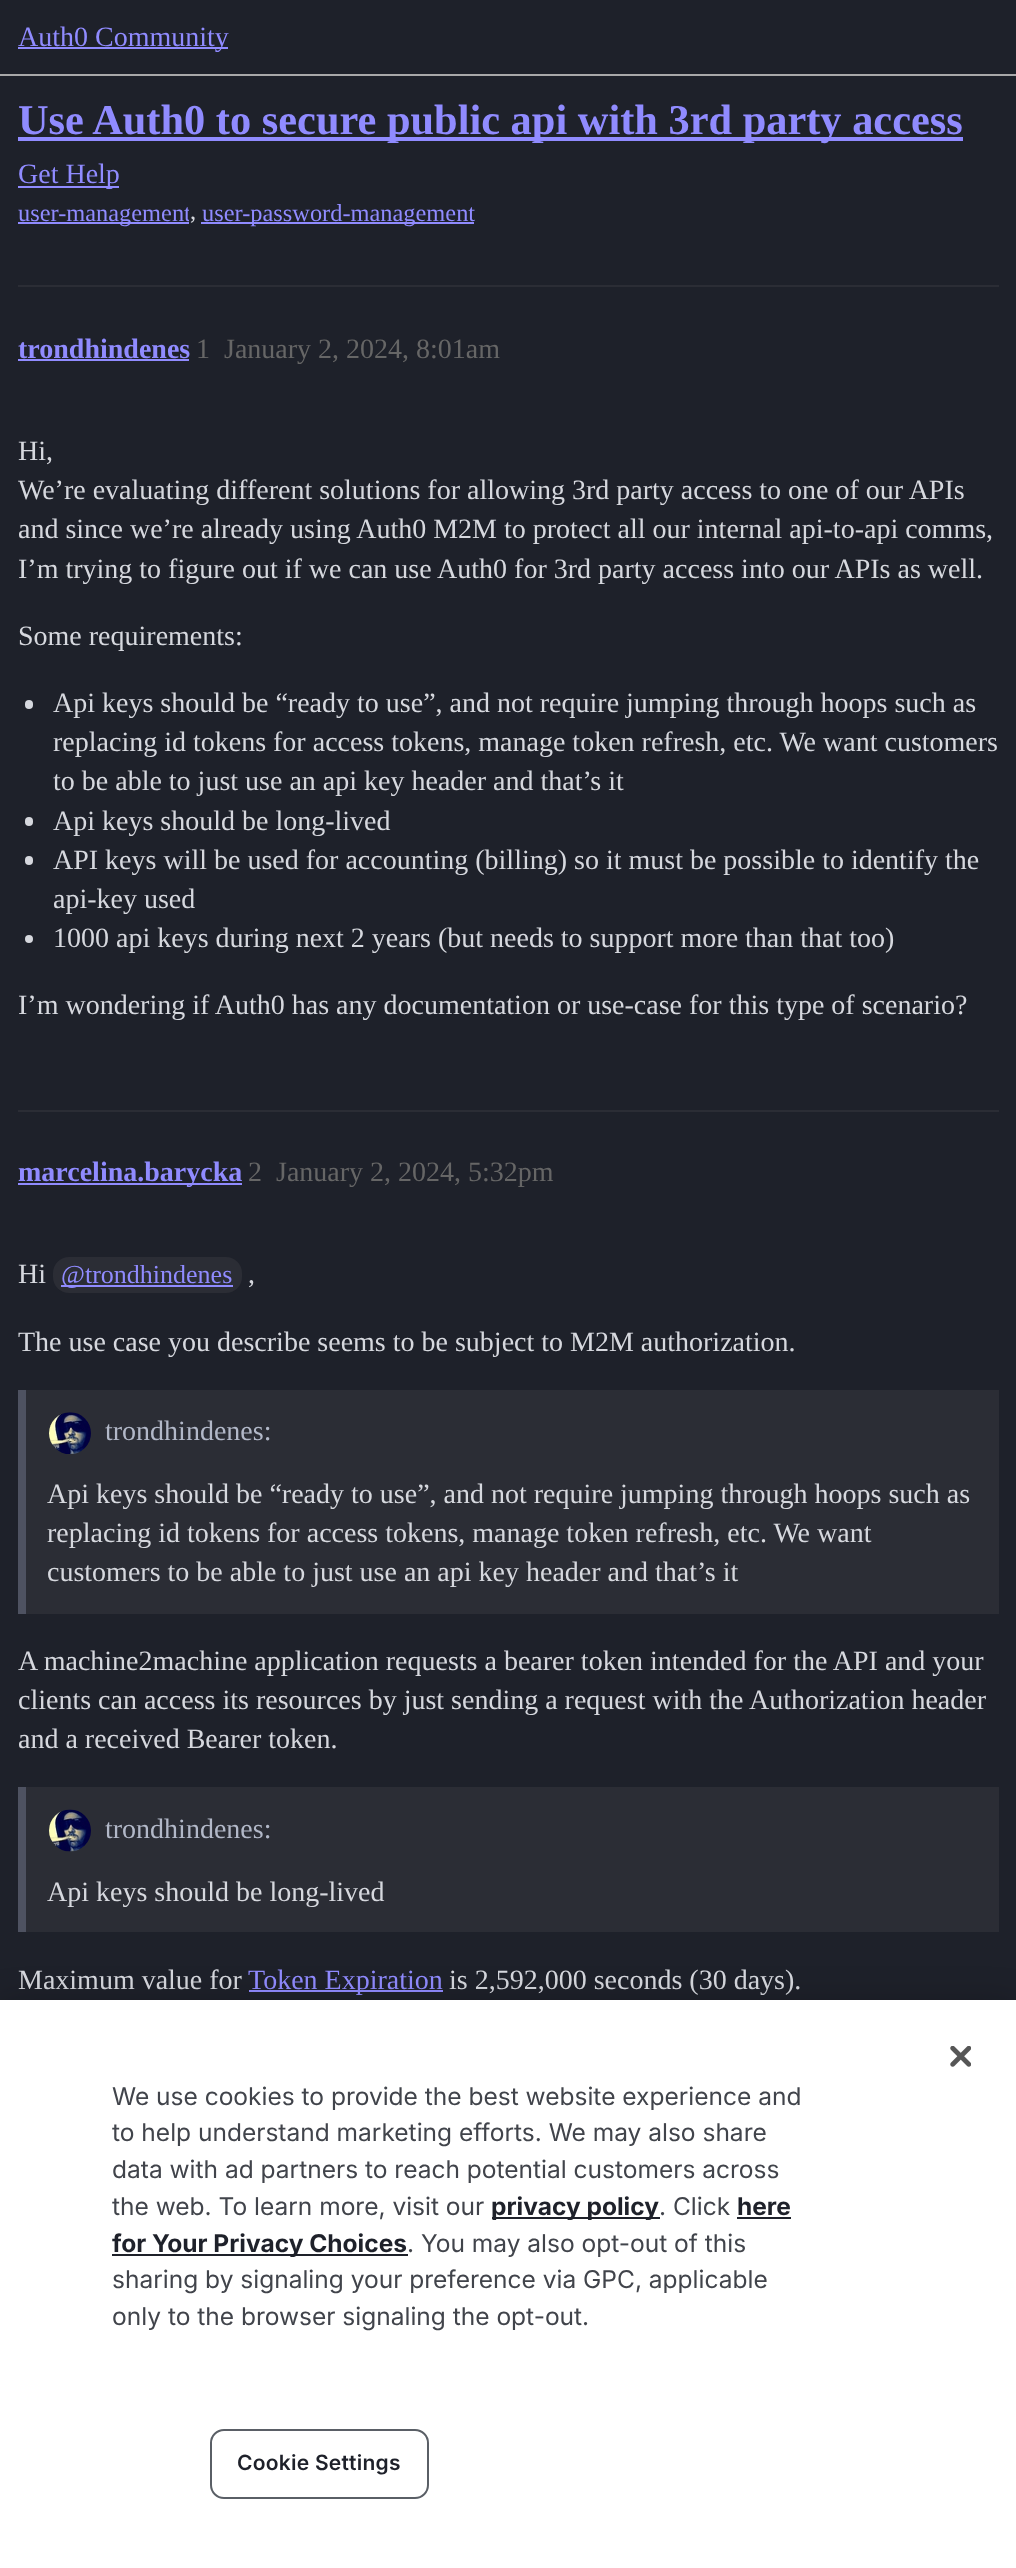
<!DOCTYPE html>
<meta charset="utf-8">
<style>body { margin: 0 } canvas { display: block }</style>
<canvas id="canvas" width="1016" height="2568"></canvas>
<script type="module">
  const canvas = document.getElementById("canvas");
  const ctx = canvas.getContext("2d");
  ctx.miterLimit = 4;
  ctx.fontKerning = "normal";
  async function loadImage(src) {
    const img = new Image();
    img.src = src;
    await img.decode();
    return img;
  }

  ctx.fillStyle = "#1e212a";
  ctx.fillRect(0, 0, 1016, 2568);
  ctx.fillStyle = "#a8a8a9";
  ctx.fillRect(0, 74, 1016, 2);
  ctx.fillStyle = "#908bff";
  ctx.fillRect(18, 47, 210, 2);
  ctx.font = "28px Liberation Serif";
  ctx.fillText("Auth0 Community", 18, 46);
  ctx.fillRect(18, 137, 945, 4);
  ctx.font = "bold 42.4px Liberation Serif";
  ctx.fillText("Use Auth0 to secure public api with 3rd party access", 18, 134);
  ctx.fillRect(18, 186, 101, 2);
  ctx.font = "28px Liberation Serif";
  ctx.fillText("Get Help", 18, 183);
  ctx.fillRect(18, 222, 171, 2);
  ctx.save();
  ctx.beginPath();
  ctx.rect(18, 196, 171, 33);
  ctx.clip();
  ctx.font = "24.4px Liberation Serif";
  ctx.fillText("user-management", 18, 221);
  ctx.restore();
  ctx.font = "24.4px Liberation Serif";
  ctx.fillStyle = "#d6d8de";
  ctx.fillText(",", 190, 219);
  ctx.fillStyle = "#908bff";
  ctx.fillRect(201, 222, 273, 2);
  ctx.fillText("user-password-management", 202, 221);
  ctx.fillStyle = "#2b2d35";
  ctx.fillRect(18, 285, 981, 2);
  ctx.font = "bold 28px Liberation Serif";
  ctx.fillStyle = "#908bff";
  ctx.fillText("trondhindenes", 18, 358);
  ctx.fillRect(18, 359, 171, 2);
  ctx.font = "28px Liberation Serif";
  ctx.fillStyle = "#666666";
  ctx.fillText("1", 196, 358);
  ctx.fillText("January 2, 2024, 8:01am", 224, 358);
  ctx.fillStyle = "#d6d8de";
  ctx.fillText("Hi,", 18, 460);
  ctx.fillText("We’re evaluating different solutions for allowing 3rd party access to one of our APIs", 18, 499);
  ctx.fillText("and since we’re already using Auth0 M2M to protect all our internal api-to-api comms,", 18, 538);
  ctx.fillText("I’m trying to figure out if we can use Auth0 for 3rd party access into our APIs as well.", 18, 578);
  ctx.fillText("Some requirements:", 18, 645);
  ctx.beginPath();
  ctx.roundRect(25, 700, 8, 9, 4);
  ctx.fill();
  ctx.fillText("Api keys should be “ready to use”, and not require jumping through hoops such as", 53, 712);
  ctx.fillText("replacing id tokens for access tokens, manage token refresh, etc. We want customers", 53, 751);
  ctx.fillText("to be able to just use an api key header and that’s it", 53, 790);
  ctx.beginPath();
  ctx.roundRect(25, 817, 8, 9, 4);
  ctx.fill();
  ctx.fillText("Api keys should be long-lived", 53, 830);
  ctx.beginPath();
  ctx.roundRect(25, 856, 8, 9, 4);
  ctx.fill();
  ctx.fillText("API keys will be used for accounting (billing) so it must be possible to identify the", 53, 869);
  ctx.fillText("api-key used", 53, 908);
  ctx.beginPath();
  ctx.arc(29, 939, 4, 0, Math.PI * 2);
  ctx.fill();
  ctx.fillText("1000 api keys during next 2 years (but needs to support more than that too)", 53, 947);
  ctx.fillText("I’m wondering if Auth0 has any documentation or use-case for this type of scenario?", 18, 1014);
  ctx.fillStyle = "#2b2d35";
  ctx.fillRect(18, 1110, 981, 2);
  ctx.fillStyle = "#908bff";
  ctx.fillRect(18, 1183, 224, 2);
  ctx.font = "bold 28px Liberation Serif";
  ctx.fillText("marcelina.barycka", 18, 1181);
  ctx.font = "28px Liberation Serif";
  ctx.fillStyle = "#666666";
  ctx.fillText("2", 248, 1181);
  ctx.fillText("January 2, 2024, 5:32pm", 276, 1181);
  ctx.fillStyle = "#d6d8de";
  ctx.fillText("Hi", 18, 1283);
  ctx.fillStyle = "#2b2d35";
  ctx.beginPath();
  ctx.roundRect(53, 1257, 189, 36, 16);
  ctx.fill();
  ctx.fillStyle = "#908bff";
  ctx.fillRect(61, 1285, 172, 2);
  ctx.font = "26px Liberation Serif";
  ctx.fillText("@trondhindenes", 61, 1283);
  ctx.font = "28px Liberation Serif";
  ctx.fillStyle = "#d6d8de";
  ctx.fillText(",", 248, 1283);
  ctx.fillText("The use case you describe seems to be subject to M2M authorization.", 18, 1351);
  ctx.fillStyle = "#2b2d35";
  ctx.fillRect(26, 1390, 973, 224);
  ctx.fillStyle = "#4e5261";
  ctx.fillRect(18, 1390, 8, 224);
  ctx.drawImage(await loadImage("img1.png"), 49, 1412, 42, 42);
  ctx.fillStyle = "#b2b8c8";
  ctx.fillText("trondhindenes:", 105, 1440);
  ctx.fillStyle = "#d6d8de";
  ctx.fillText("Api keys should be “ready to use”, and not require jumping through hoops such as", 47, 1503);
  ctx.fillText("replacing id tokens for access tokens, manage token refresh, etc. We want", 47, 1542);
  ctx.fillText("customers to be able to just use an api key header and that’s it", 47, 1581);
  ctx.fillText("A machine2machine application requests a bearer token intended for the API and your", 18, 1670);
  ctx.fillText("clients can access its resources by just sending a request with the Authorization header", 18, 1709);
  ctx.fillText("and a received Bearer token.", 18, 1748);
  ctx.fillStyle = "#2b2d35";
  ctx.fillRect(26, 1787, 973, 145);
  ctx.fillStyle = "#4e5261";
  ctx.fillRect(18, 1787, 8, 145);
  ctx.drawImage(await loadImage("img2.png"), 49, 1809, 42, 43);
  ctx.fillStyle = "#b2b8c8";
  ctx.fillText("trondhindenes:", 105, 1838);
  ctx.fillStyle = "#d6d8de";
  ctx.fillText("Api keys should be long-lived", 47, 1901);
  ctx.fillText("Maximum value for", 18, 1989);
  ctx.fillStyle = "#908bff";
  ctx.fillRect(249, 1990, 194, 2);
  ctx.fillText("Token Expiration", 248, 1989);
  ctx.fillStyle = "#d6d8de";
  ctx.fillText("is 2,592,000 seconds (30 days).", 449, 1989);
  ctx.fillStyle = "rgba(0, 0, 0, 0.2)";
  ctx.filter = "blur(16px)";
  ctx.beginPath();
  ctx.rect(0, 2000, 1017, 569);
  ctx.fill();
  ctx.filter = "none";
  ctx.fillStyle = "#ffffff";
  ctx.fillRect(0, 2000, 1016, 568);
  ctx.drawImage(await loadImage("img3.png"), 950, 2046, 21, 21);
  ctx.font = "24.5px Inter";
  ctx.fillStyle = "#41444b";
  ctx.fillText("We use cookies to provide the best website experience and", 112, 2105);
  ctx.fillText("to help understand marketing efforts. We may also share", 112, 2141);
  ctx.fillText("data with ad partners to reach potential customers across", 112, 2178);
  ctx.fillText("the web. To learn more, visit our", 112, 2215);
  ctx.fillStyle = "#1e212a";
  ctx.fillRect(492, 2217, 168, 2);
  ctx.font = "bold 24.5px Inter";
  ctx.fillText("privacy policy", 491, 2215);
  ctx.font = "24.5px Inter";
  ctx.fillStyle = "#41444b";
  ctx.fillText(". Click", 659, 2215);
  ctx.font = "bold 24.5px Inter";
  ctx.fillStyle = "#1e212a";
  ctx.fillText("here", 737, 2215);
  ctx.fillRect(737, 2217, 54, 2);
  ctx.fillRect(112, 2254, 296, 2);
  ctx.fillText("for Your Privacy Choices", 112, 2252);
  ctx.font = "24.5px Inter";
  ctx.fillStyle = "#41444b";
  ctx.fillText(". You may also opt-out of this", 407, 2252);
  ctx.fillText("sharing by signaling your preference via GPC, applicable", 112, 2288);
  ctx.fillText("only to the browser signaling the opt-out.", 112, 2325);
  ctx.beginPath();
  ctx.roundRect(211, 2430, 217, 68, 13);
  ctx.strokeStyle = "#5a5f66";
  ctx.lineWidth = 2;
  ctx.stroke();
  ctx.letterSpacing = "0.25px";
  ctx.font = "600 21px Inter";
  ctx.fillStyle = "#1e212a";
  ctx.fillText("Cookie Settings", 237, 2470);
</script>
